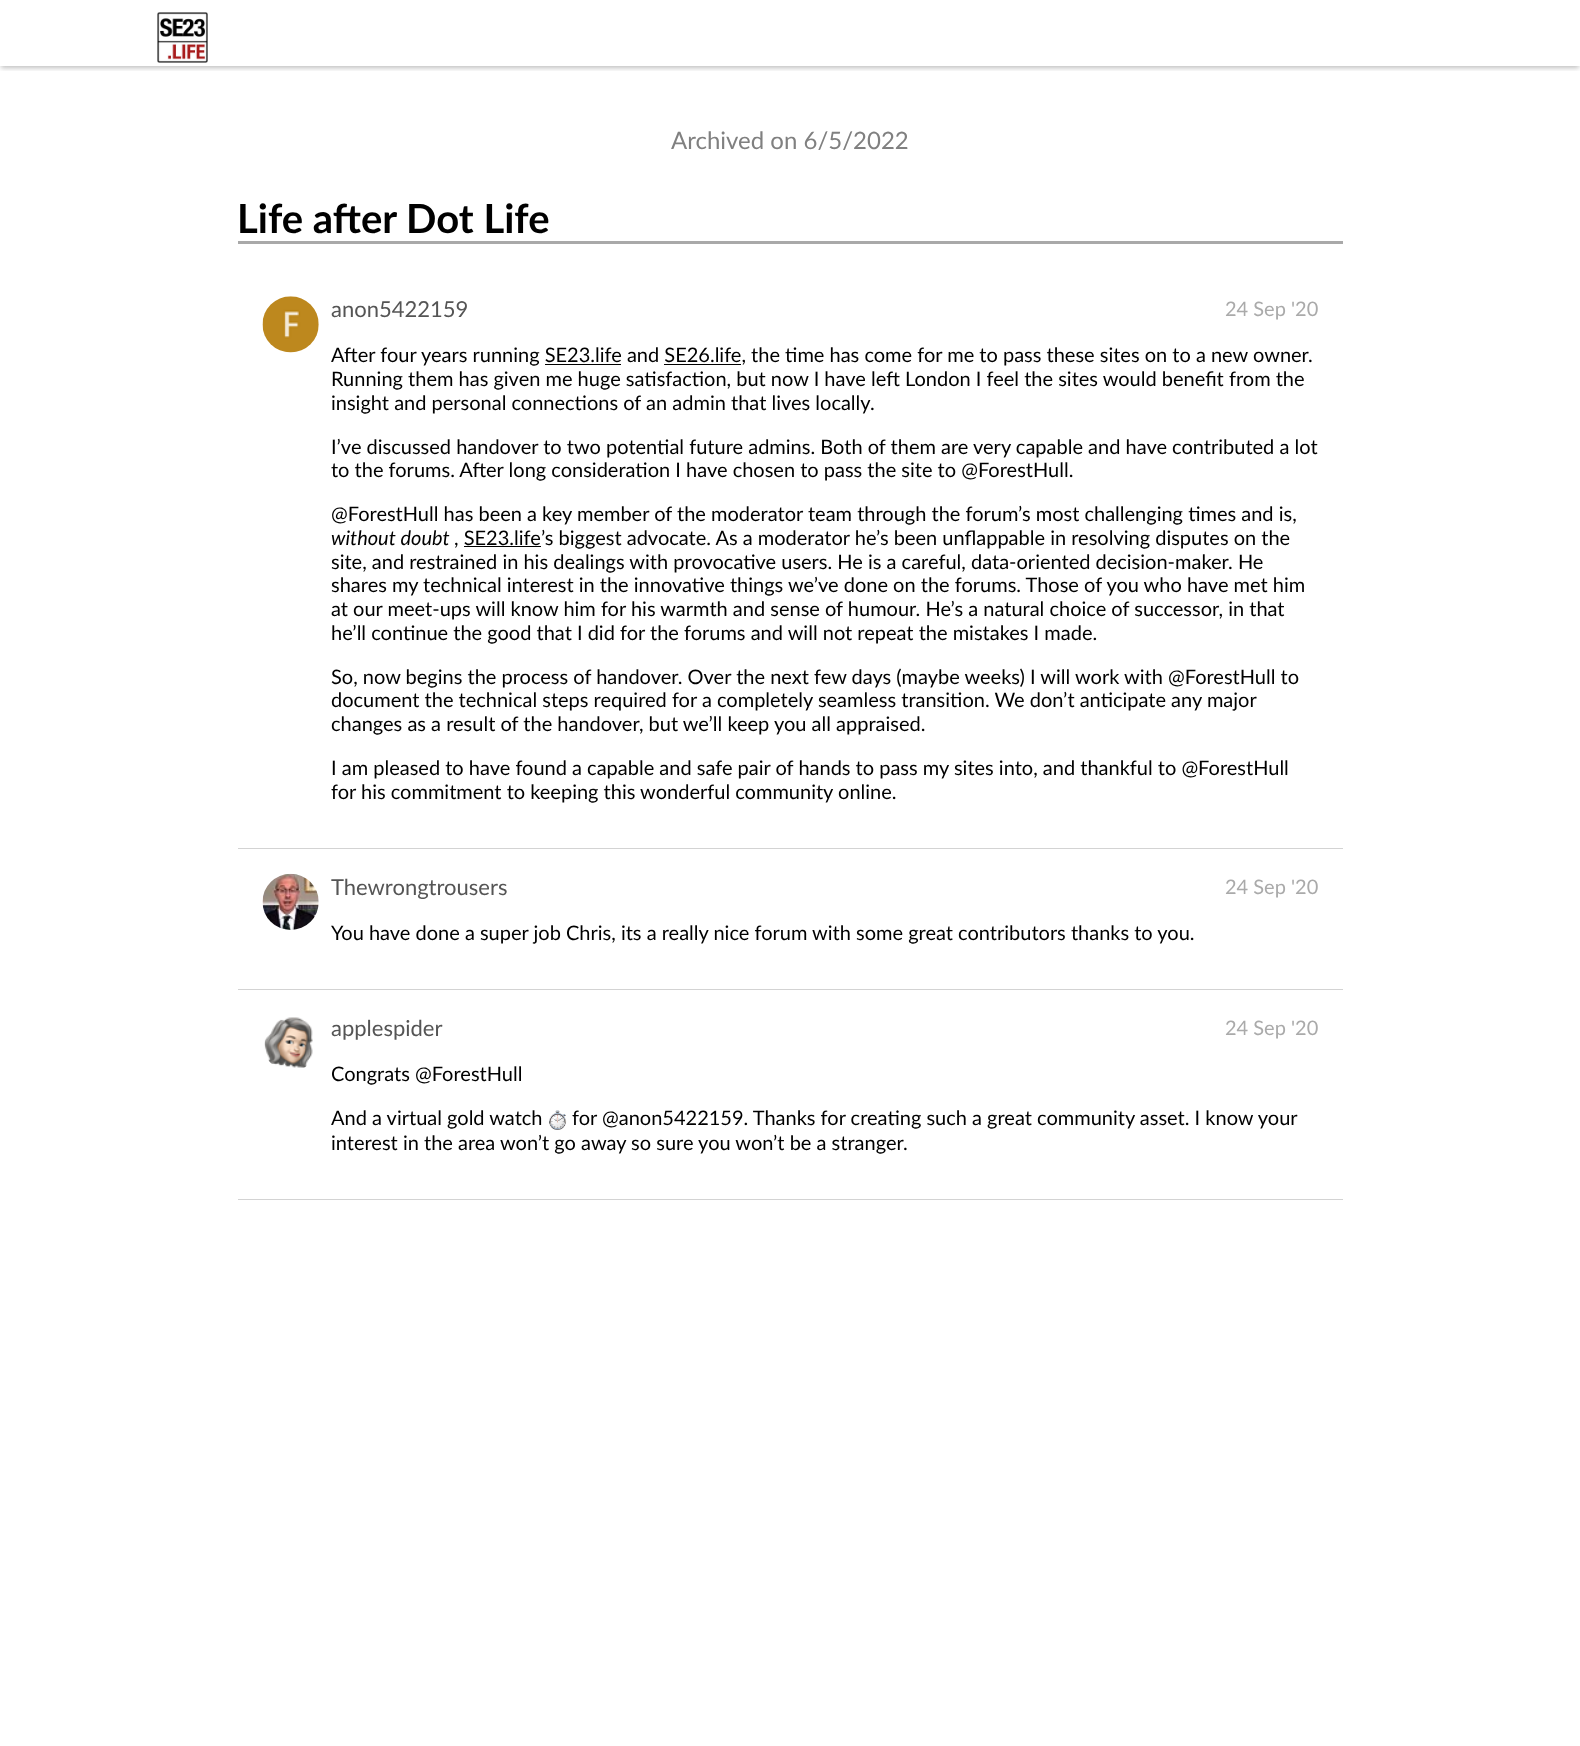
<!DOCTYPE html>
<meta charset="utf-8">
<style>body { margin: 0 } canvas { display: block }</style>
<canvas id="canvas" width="1580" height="1746"></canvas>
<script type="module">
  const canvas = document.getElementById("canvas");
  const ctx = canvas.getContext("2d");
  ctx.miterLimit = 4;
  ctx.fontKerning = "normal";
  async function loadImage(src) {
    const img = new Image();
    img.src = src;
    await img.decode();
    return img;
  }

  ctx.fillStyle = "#ffffff";
  ctx.fillRect(0, 0, 1580, 1746);
  ctx.save();
  ctx.beginPath();
  ctx.rect(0, 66, 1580, 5);
  ctx.clip();
  ctx.fillStyle = "rgba(0, 0, 0, 0.25)";
  ctx.filter = "blur(2.5px)";
  ctx.beginPath();
  ctx.rect(1, 4, 1578, 64);
  ctx.fill();
  ctx.filter = "none";
  ctx.restore();
  ctx.drawImage(await loadImage("img1.png"), 157, 12, 51, 51);
  ctx.font = "24px Lato";
  ctx.fillStyle = "#808080";
  ctx.fillText("Archived on 6/5/2022", 671, 149);
  ctx.fillStyle = "#a9a9a9";
  ctx.fillRect(238, 241, 1105, 3);
  ctx.font = "bold 40px Lato";
  ctx.fillStyle = "#000000";
  ctx.fillText("Life after Dot Life", 237, 233);
  ctx.fillStyle = "#d3d3d3";
  ctx.fillRect(238, 848, 1105, 1);
  ctx.drawImage(await loadImage("img2.png"), 262, 296, 57, 57);
  ctx.font = "22px Lato";
  ctx.fillStyle = "#555555";
  ctx.fillText("anon5422159", 331, 317);
  ctx.font = "20px Lato";
  ctx.fillStyle = "#aaaaaa";
  ctx.fillText("24 Sep '20", 1225, 316);
  ctx.fillStyle = "#000000";
  ctx.fillText("After four years running SE23.life and SE26.life, the time has come for me to pass these sites on to a new owner.", 331, 362);
  ctx.fillRect(545, 364, 76, 1);
  ctx.fillRect(664, 364, 77, 1);
  ctx.fillText("Running them has given me huge satisfaction, but now I have left London I feel the sites would benefit from the", 331, 386);
  ctx.fillText("insight and personal connections of an admin that lives locally.", 331, 410);
  ctx.fillText("I’ve discussed handover to two potential future admins. Both of them are very capable and have contributed a lot", 331, 454);
  ctx.fillText("to the forums. After long consideration I have chosen to pass the site to @ForestHull.", 331, 477);
  ctx.fillText("@ForestHull has been a key member of the moderator team through the forum’s most challenging times and is,", 331, 521);
  ctx.font = "italic 20px Lato";
  ctx.fillText("without doubt", 331, 545);
  ctx.font = "20px Lato";
  ctx.fillText(", SE23.life", 454, 545);
  ctx.fillText("’s biggest advocate. As a moderator he’s been unflappable in resolving disputes on the", 541, 545);
  ctx.fillRect(464, 546, 77, 1);
  ctx.fillText("site, and restrained in his dealings with provocative users. He is a careful, data-oriented decision-maker. He", 331, 569);
  ctx.fillText("shares my technical interest in the innovative things we’ve done on the forums. Those of you who have met him", 331, 592);
  ctx.fillText("at our meet-ups will know him for his warmth and sense of humour. He’s a natural choice of successor, in that", 331, 616);
  ctx.fillText("he’ll continue the good that I did for the forums and will not repeat the mistakes I made.", 331, 640);
  ctx.fillText("So, now begins the process of handover. Over the next few days (maybe weeks) I will work with @ForestHull to", 331, 684);
  ctx.fillText("document the technical steps required for a completely seamless transition. We don’t anticipate any major", 331, 707);
  ctx.fillText("changes as a result of the handover, but we’ll keep you all appraised.", 331, 731);
  ctx.fillText("I am pleased to have found a capable and safe pair of hands to pass my sites into, and thankful to @ForestHull", 331, 775);
  ctx.fillText("for his commitment to keeping this wonderful community online.", 331, 799);
  ctx.fillStyle = "#d3d3d3";
  ctx.fillRect(238, 989, 1105, 1);
  ctx.drawImage(await loadImage("img3.png"), 262, 873, 57, 57);
  ctx.font = "22px Lato";
  ctx.fillStyle = "#555555";
  ctx.fillText("Thewrongtrousers", 331, 895);
  ctx.font = "20px Lato";
  ctx.fillStyle = "#aaaaaa";
  ctx.fillText("24 Sep '20", 1225, 894);
  ctx.fillStyle = "#000000";
  ctx.fillText("You have done a super job Chris, its a really nice forum with some great contributors thanks to you.", 331, 940);
  ctx.fillStyle = "#d3d3d3";
  ctx.fillRect(238, 1199, 1105, 1);
  ctx.drawImage(await loadImage("img4.png"), 264, 1017, 49, 51);
  ctx.font = "22px Lato";
  ctx.fillStyle = "#555555";
  ctx.fillText("applespider", 331, 1036);
  ctx.font = "20px Lato";
  ctx.fillStyle = "#aaaaaa";
  ctx.fillText("24 Sep '20", 1225, 1035);
  ctx.fillStyle = "#000000";
  ctx.fillText("Congrats @ForestHull", 331, 1081);
  ctx.fillText("And a virtual gold watch", 331, 1125);
  ctx.drawImage(await loadImage("img5.png"), 549, 1110, 18, 20);
  ctx.fillText("for @anon5422159. Thanks for creating such a great community asset. I know your", 572, 1125);
  ctx.fillText("interest in the area won’t go away so sure you won’t be a stranger.", 331, 1150);
</script>
